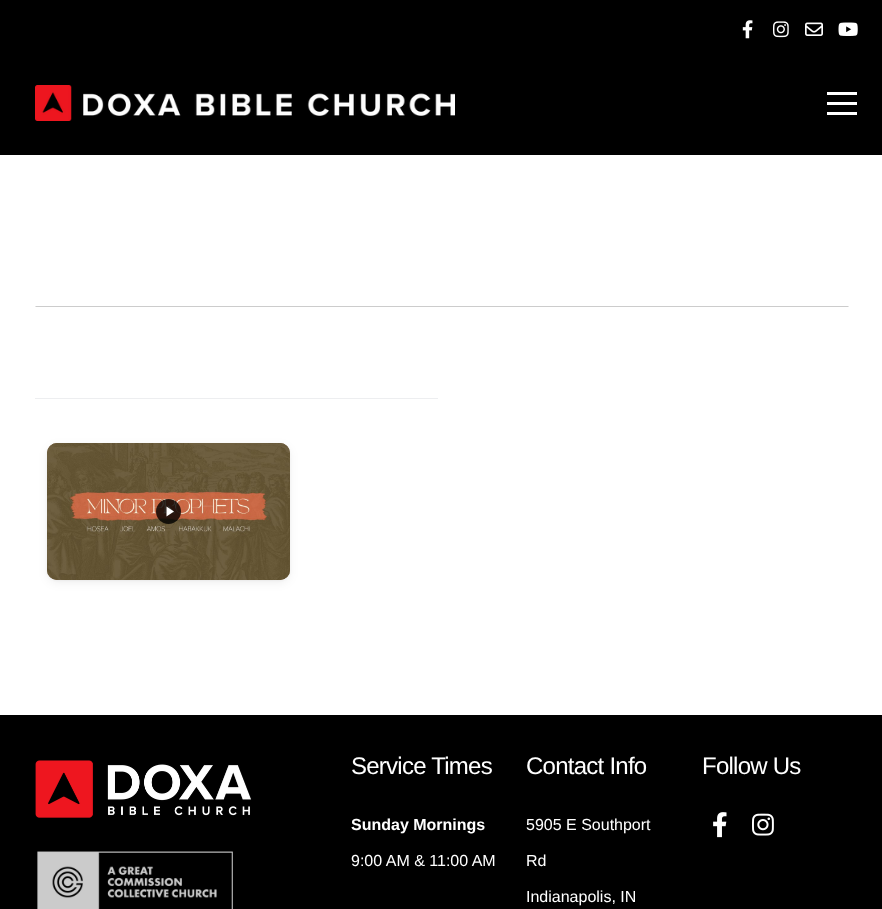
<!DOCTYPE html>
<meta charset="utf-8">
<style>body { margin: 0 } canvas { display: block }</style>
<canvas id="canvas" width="882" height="909"></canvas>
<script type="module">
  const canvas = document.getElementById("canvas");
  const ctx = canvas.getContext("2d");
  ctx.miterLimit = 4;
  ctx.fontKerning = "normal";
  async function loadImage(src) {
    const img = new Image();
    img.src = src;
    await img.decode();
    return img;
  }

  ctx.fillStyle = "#ffffff";
  ctx.fillRect(0, 0, 882, 909);
  ctx.fillStyle = "#000000";
  ctx.fillRect(0, 0, 882, 155);
  ctx.drawImage(await loadImage("img1.png"), 742, 20, 11, 19);
  ctx.drawImage(await loadImage("img2.png"), 773, 21, 16, 17);
  ctx.drawImage(await loadImage("img3.png"), 805, 22, 18, 14);
  ctx.drawImage(await loadImage("img4.png"), 838, 22, 20, 14);
  ctx.drawImage(await loadImage("img5.png"), 35, 85, 420, 36);
  ctx.fillStyle = "#ffffff";
  ctx.fillRect(827, 92, 30, 3);
  ctx.fillRect(827, 102, 30, 3);
  ctx.fillRect(827, 112, 30, 3);
  ctx.fillStyle = "#cccccc";
  ctx.beginPath();
  ctx.moveTo(849, 307);
  ctx.lineTo(35, 307);
  ctx.lineTo(36, 306);
  ctx.lineTo(848, 306);
  ctx.closePath();
  ctx.fill();
  ctx.fillStyle = "#edeef0";
  ctx.fillRect(35, 398, 403, 1);
  ctx.fillStyle = "rgba(0, 0, 0, 0.04)";
  ctx.filter = "blur(1px)";
  ctx.beginPath();
  ctx.roundRect(47, 444, 243, 137, 10);
  ctx.fill();
  ctx.filter = "none";
  ctx.fillStyle = "rgba(0, 0, 0, 0.06)";
  ctx.filter = "blur(5px)";
  ctx.beginPath();
  ctx.roundRect(47, 446, 243, 137, 10);
  ctx.fill();
  ctx.filter = "none";
  ctx.fillStyle = "#7b5e3d";
  ctx.beginPath();
  ctx.roundRect(47, 443, 243, 137, 10);
  ctx.fill();
  ctx.drawImage(await loadImage("img6.png"), 47, 443, 243, 137);
  ctx.fillStyle = "rgba(0, 0, 0, 0.8)";
  ctx.beginPath();
  ctx.arc(168.5, 511.5, 12.5, 0, Math.PI * 2);
  ctx.fill();
  ctx.fillStyle = "#ffffff";
  ctx.beginPath();
  ctx.moveTo(166.5, 516.5);
  ctx.lineTo(166.5, 506.5);
  ctx.lineTo(174, 511.5);
  ctx.closePath();
  ctx.fill();
  ctx.fillStyle = "#000000";
  ctx.fillRect(0, 715, 882, 194);
  ctx.drawImage(await loadImage("img7.png"), 35, 760, 217, 58);
  ctx.drawImage(await loadImage("img8.png"), 37, 851, 196, 58);
  ctx.letterSpacing = "-0.75px";
  ctx.font = "24px Liberation Sans";
  ctx.fillStyle = "#ffffff";
  ctx.fillText("Service Times", 351, 774);
  ctx.letterSpacing = "0px";
  ctx.font = "bold 16px Liberation Sans";
  ctx.fillText("Sunday Mornings", 351, 830);
  ctx.font = "16px Liberation Sans";
  ctx.fillText("9:00 AM & 11:00 AM", 351, 866);
  ctx.letterSpacing = "-0.75px";
  ctx.font = "24px Liberation Sans";
  ctx.fillText("Contact Info", 526, 774);
  ctx.letterSpacing = "0px";
  ctx.font = "16px Liberation Sans";
  ctx.fillText("5905 E Southport", 526, 830);
  ctx.fillText("Rd", 526, 866);
  ctx.fillText("Indianapolis, IN", 526, 902);
  ctx.letterSpacing = "-0.75px";
  ctx.font = "24px Liberation Sans";
  ctx.fillText("Follow Us", 702, 774);
  ctx.drawImage(await loadImage("img9.png"), 713, 812, 14, 26);
  ctx.drawImage(await loadImage("img10.png"), 752, 813, 22, 23);
</script>
